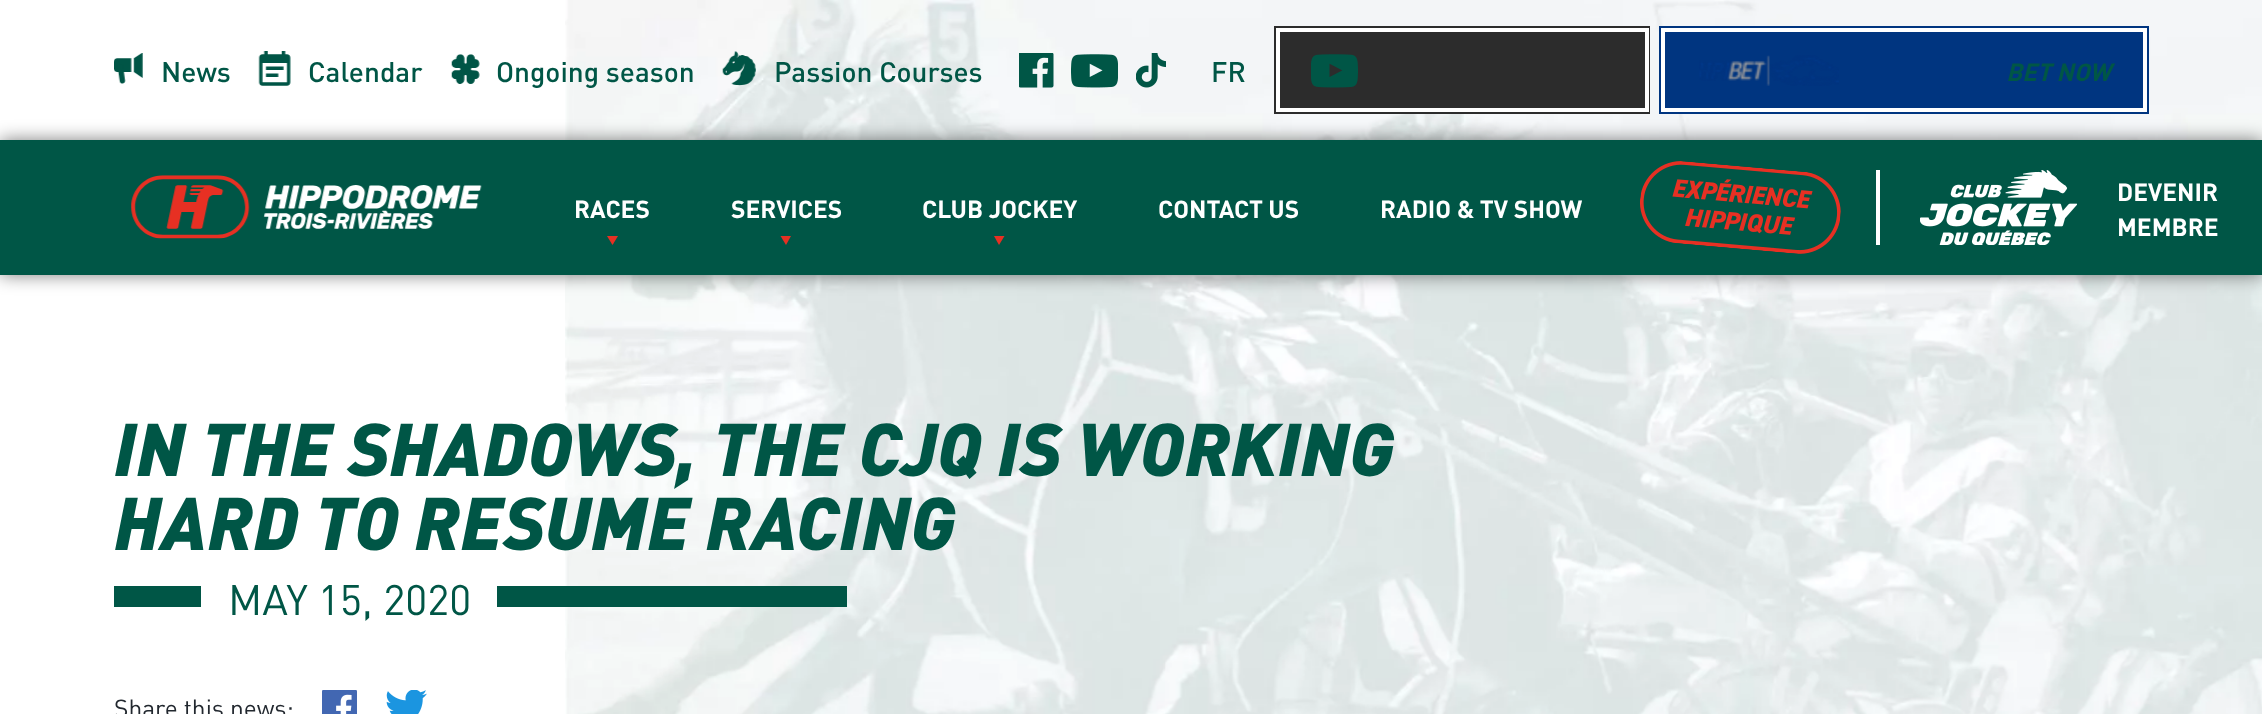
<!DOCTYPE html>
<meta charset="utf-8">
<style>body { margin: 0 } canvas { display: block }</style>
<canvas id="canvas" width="2262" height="714"></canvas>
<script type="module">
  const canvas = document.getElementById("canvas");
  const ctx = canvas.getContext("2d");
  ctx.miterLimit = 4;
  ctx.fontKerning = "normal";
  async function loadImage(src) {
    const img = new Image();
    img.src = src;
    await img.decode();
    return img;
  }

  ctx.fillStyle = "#ffffff";
  ctx.fillRect(0, 0, 2262, 714);
  ctx.drawImage(await loadImage("img1.png"), 114, 53, 29, 31);
  ctx.font = "500 28px 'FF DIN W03'";
  ctx.fillStyle = "#005646";
  ctx.fillText("News", 161, 82);
  ctx.drawImage(await loadImage("img2.png"), 258, 51, 33, 35);
  ctx.fillText("Calendar", 308, 82);
  ctx.drawImage(await loadImage("img3.png"), 451, 54, 29, 30);
  ctx.drawImage(await loadImage("img13.png"), 565, 0, 1697, 714);
  ctx.fillText("Ongoing season", 496, 82);
  ctx.drawImage(await loadImage("img4.png"), 722, 51, 34, 35);
  ctx.fillText("Passion Courses", 774, 82);
  ctx.drawImage(await loadImage("img5.png"), 1019, 53, 35, 35);
  ctx.drawImage(await loadImage("img6.png"), 1071, 54, 47, 34);
  ctx.drawImage(await loadImage("img7.png"), 1136, 53, 30, 35);
  ctx.fillText("FR", 1211, 82);
  ctx.fillStyle = "#2c2c2c";
  ctx.fillRect(1274, 26, 376, 88);
  ctx.drawImage(await loadImage("img8.png"), 1311, 54, 47, 34);
  ctx.strokeStyle = "#ffffff";
  ctx.lineWidth = 4;
  ctx.strokeRect(1278, 30, 369, 80);
  ctx.fillStyle = "#003580";
  ctx.fillRect(1659, 26, 490, 88);
  ctx.drawImage(await loadImage("img9.png"), 1699, 55, 140, 31);
  ctx.strokeRect(1663, 30, 482, 80);
  ctx.font = "italic bold 24.5px 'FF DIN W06'";
  ctx.fillStyle = "#005646";
  ctx.fillText("BET NOW", 2006, 81);
  ctx.fillStyle = "rgba(0, 0, 0, 0.51)";
  ctx.filter = "blur(9px)";
  ctx.beginPath();
  ctx.rect(0, 140, 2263, 135);
  ctx.fill();
  ctx.filter = "none";
  ctx.fillStyle = "#005646";
  ctx.fillRect(0, 140, 2262, 135);
  ctx.drawImage(await loadImage("img10.png"), 131, 175, 351, 64);
  ctx.font = "bold 24.5px 'FF DIN W06'";
  ctx.fillStyle = "#ffffff";
  ctx.fillText("RACES", 574, 218);
  ctx.fillStyle = "#e73023";
  ctx.beginPath();
  ctx.moveTo(607, 236);
  ctx.lineTo(618, 236);
  ctx.lineTo(612.5, 245);
  ctx.closePath();
  ctx.fill();
  ctx.fillStyle = "#ffffff";
  ctx.fillText("SERVICES", 731, 218);
  ctx.fillStyle = "#e73023";
  ctx.beginPath();
  ctx.moveTo(780.5, 236);
  ctx.lineTo(791, 236);
  ctx.lineTo(786, 245);
  ctx.closePath();
  ctx.fill();
  ctx.fillStyle = "#ffffff";
  ctx.fillText("CLUB JOCKEY", 922, 218);
  ctx.fillStyle = "#e73023";
  ctx.beginPath();
  ctx.moveTo(994, 236);
  ctx.lineTo(1004.5, 236);
  ctx.lineTo(999, 245);
  ctx.closePath();
  ctx.fill();
  ctx.fillStyle = "#ffffff";
  ctx.fillText("CONTACT US", 1158, 218);
  ctx.fillText("RADIO & TV SHOW", 1380, 218);
  ctx.drawImage(await loadImage("img11.png"), 1640, 161, 201, 93);
  ctx.fillRect(1876, 170, 4, 75);
  ctx.drawImage(await loadImage("img12.png"), 1920, 170, 157, 75);
  ctx.fillText("DEVENIR", 2117, 201);
  ctx.fillText("MEMBRE", 2117, 236);
  ctx.font = "italic 900 73.5px 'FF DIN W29'";
  ctx.fillStyle = "#005646";
  ctx.fillText("IN THE SHADOWS, THE CJQ IS WORKING", 114, 476);
  ctx.fillText("HARD TO RESUME RACING", 114, 550);
  ctx.fillRect(114, 586, 87, 21);
  ctx.font = "42px 'FF DIN W06'";
  ctx.fillText("MAY 15, 2020", 228, 615);
  ctx.fillRect(497, 586, 350, 21);
  ctx.font = "24.5px 'FF DIN W06'";
  ctx.fillStyle = "#22282f";
  ctx.fillText("Share this news:", 114, 717);
  ctx.drawImage(await loadImage("img14.png"), 322, 690, 35, 24);
  ctx.drawImage(await loadImage("img15.png"), 386, 690, 41, 24);
</script>
